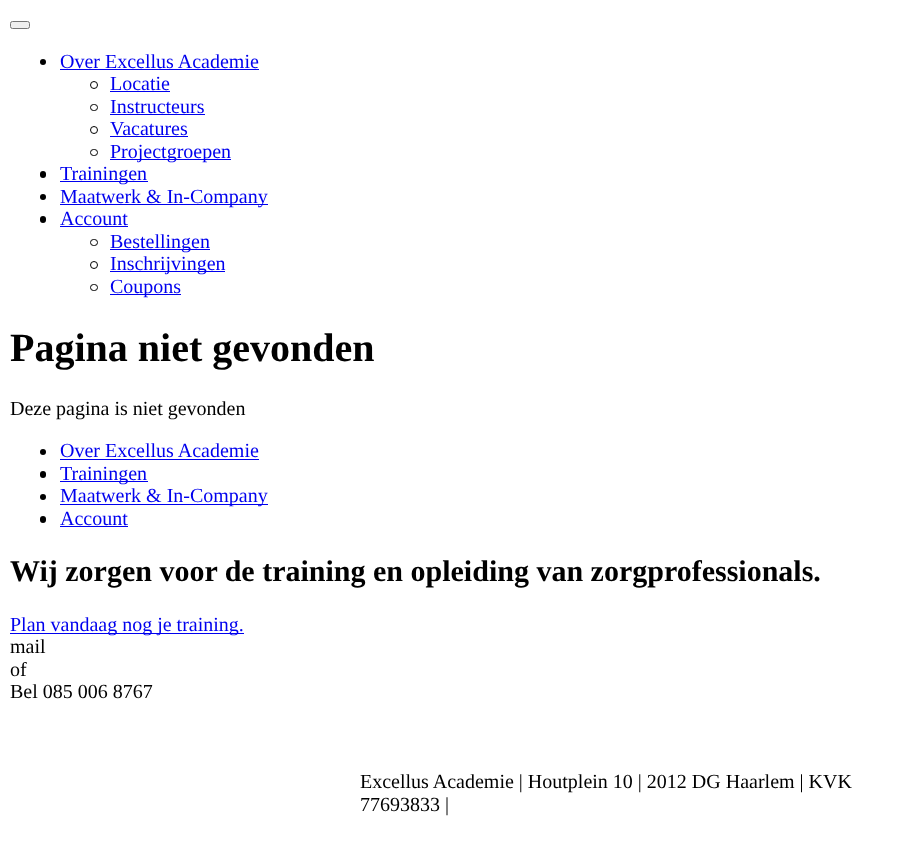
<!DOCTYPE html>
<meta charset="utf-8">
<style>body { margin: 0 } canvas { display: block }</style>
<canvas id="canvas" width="899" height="849"></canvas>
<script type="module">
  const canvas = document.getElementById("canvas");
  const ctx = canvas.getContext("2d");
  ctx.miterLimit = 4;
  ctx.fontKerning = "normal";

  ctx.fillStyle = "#ffffff";
  ctx.fillRect(0, 0, 899, 849);
  ctx.fillStyle = "#efefef";
  ctx.beginPath();
  ctx.roundRect(10.5, 21.5, 19, 7, 2);
  ctx.fill();
  ctx.strokeStyle = "#767676";
  ctx.stroke();
  ctx.fillStyle = "#000000";
  ctx.beginPath();
  ctx.arc(43, 62, 3, 0, Math.PI * 2);
  ctx.fill();
  ctx.font = "20px Liberation Serif";
  ctx.fillStyle = "#0000ee";
  ctx.fillText("Over Excellus Academie", 60, 68);
  ctx.fillRect(60, 69, 199, 1);
  ctx.beginPath();
  ctx.arc(94, 85, 3.5, 0, Math.PI * 2);
  ctx.strokeStyle = "#000000";
  ctx.stroke();
  ctx.fillText("Locatie", 110, 90);
  ctx.fillRect(110, 91, 60, 1);
  ctx.beginPath();
  ctx.roundRect(90.5, 104.5, 7, 6, 3);
  ctx.stroke();
  ctx.fillText("Instructeurs", 110, 113);
  ctx.fillRect(110, 114, 95, 1);
  ctx.beginPath();
  ctx.arc(94, 130, 3.5, 0, Math.PI * 2);
  ctx.stroke();
  ctx.fillText("Vacatures", 110, 135);
  ctx.fillRect(110, 136, 78, 1);
  ctx.beginPath();
  ctx.roundRect(90.5, 149.5, 7, 6, 3);
  ctx.stroke();
  ctx.fillRect(110, 159, 121, 1);
  ctx.fillText("Projectgroepen", 110, 158);
  ctx.fillStyle = "#000000";
  ctx.beginPath();
  ctx.roundRect(40, 171, 6, 7, 3);
  ctx.fill();
  ctx.fillStyle = "#0000ee";
  ctx.fillRect(60, 181, 88, 1);
  ctx.fillText("Trainingen", 60, 180);
  ctx.fillStyle = "#000000";
  ctx.beginPath();
  ctx.arc(43, 197, 3, 0, Math.PI * 2);
  ctx.fill();
  ctx.fillStyle = "#0000ee";
  ctx.fillRect(60, 204, 208, 1);
  ctx.fillText("Maatwerk & In-Company", 60, 203);
  ctx.fillStyle = "#000000";
  ctx.beginPath();
  ctx.roundRect(40, 216, 6, 7, 3);
  ctx.fill();
  ctx.fillStyle = "#0000ee";
  ctx.fillText("Account", 60, 225);
  ctx.fillRect(60, 226, 68, 1);
  ctx.beginPath();
  ctx.roundRect(90.5, 239.5, 7, 6, 3);
  ctx.stroke();
  ctx.fillRect(110, 249, 100, 1);
  ctx.fillText("Bestellingen", 110, 248);
  ctx.beginPath();
  ctx.arc(94, 265, 3.5, 0, Math.PI * 2);
  ctx.stroke();
  ctx.fillRect(110, 271, 115, 1);
  ctx.fillText("Inschrijvingen", 110, 270);
  ctx.beginPath();
  ctx.roundRect(90.5, 284.5, 7, 6, 3);
  ctx.stroke();
  ctx.fillRect(110, 294, 71, 1);
  ctx.fillText("Coupons", 110, 293);
  ctx.font = "bold 40px Liberation Serif";
  ctx.fillStyle = "#000000";
  ctx.fillText("Pagina niet gevonden", 10, 361);
  ctx.font = "20px Liberation Serif";
  ctx.fillText("Deze pagina is niet gevonden", 10, 415);
  ctx.beginPath();
  ctx.arc(43, 452, 3, 0, Math.PI * 2);
  ctx.fill();
  ctx.fillStyle = "#0000ee";
  ctx.fillText("Over Excellus Academie", 60, 457);
  ctx.fillRect(60, 459, 199, 1);
  ctx.fillStyle = "#000000";
  ctx.beginPath();
  ctx.roundRect(40, 471, 6, 7, 3);
  ctx.fill();
  ctx.fillStyle = "#0000ee";
  ctx.fillRect(60, 481, 88, 1);
  ctx.fillText("Trainingen", 60, 480);
  ctx.fillStyle = "#000000";
  ctx.beginPath();
  ctx.arc(43, 497, 3, 0, Math.PI * 2);
  ctx.fill();
  ctx.fillStyle = "#0000ee";
  ctx.fillRect(60, 504, 208, 1);
  ctx.fillText("Maatwerk & In-Company", 60, 502);
  ctx.fillStyle = "#000000";
  ctx.beginPath();
  ctx.roundRect(40, 516, 6, 7, 3);
  ctx.fill();
  ctx.fillStyle = "#0000ee";
  ctx.fillText("Account", 60, 525);
  ctx.fillRect(60, 526, 68, 1);
  ctx.font = "bold 30px Liberation Serif";
  ctx.fillStyle = "#000000";
  ctx.fillText("Wij zorgen voor de training en opleiding van zorgprofessionals.", 10, 581);
  ctx.fillStyle = "#0000ee";
  ctx.fillRect(10, 633, 234, 1);
  ctx.font = "20px Liberation Serif";
  ctx.fillText("Plan vandaag nog je training.", 10, 631);
  ctx.fillStyle = "#000000";
  ctx.fillText("mail", 10, 653);
  ctx.fillText("of", 10, 676);
  ctx.fillText("Bel 085 006 8767", 10, 698);
  ctx.fillText("Excellus Academie | Houtplein 10 | 2012 DG Haarlem | KVK", 360, 788);
  ctx.fillText("77693833 |", 360, 811);
</script>
